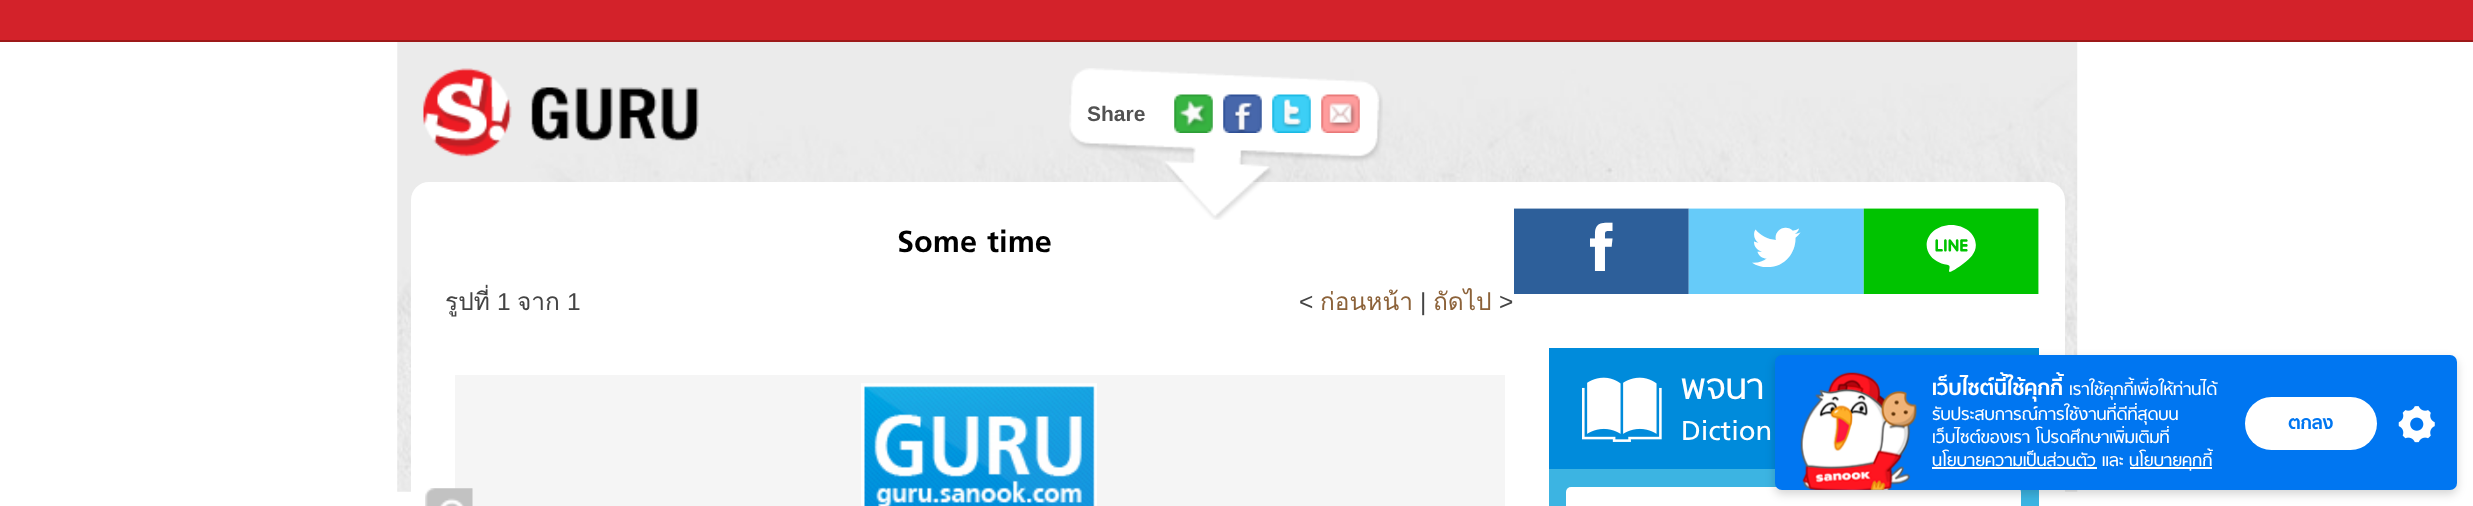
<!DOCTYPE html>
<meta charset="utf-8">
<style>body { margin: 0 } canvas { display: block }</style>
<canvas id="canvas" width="2473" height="506"></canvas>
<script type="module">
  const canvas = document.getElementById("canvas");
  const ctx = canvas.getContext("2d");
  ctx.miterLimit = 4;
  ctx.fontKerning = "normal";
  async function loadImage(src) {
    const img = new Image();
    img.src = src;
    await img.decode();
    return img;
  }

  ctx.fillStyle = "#ffffff";
  ctx.fillRect(0, 0, 2473, 506);
  ctx.fillStyle = "#d3222a";
  ctx.fillRect(0, 0, 2473, 40);
  ctx.fillStyle = "#9d1919";
  ctx.fillRect(0, 40, 2473, 2);
  ctx.drawImage(await loadImage("img1.png"), 397, 42, 1681, 450);
  ctx.drawImage(await loadImage("img2.png"), 423, 68, 276, 89);
  ctx.fillStyle = "#ffffff";
  ctx.beginPath();
  ctx.roundRect(411, 182, 1654, 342, 18);
  ctx.fill();
  ctx.drawImage(await loadImage("img3.png"), 1069, 68, 314, 152);
  ctx.font = "bold 21px Liberation Sans";
  ctx.fillStyle = "#525252";
  ctx.fillText("Share", 1087, 121);
  ctx.drawImage(await loadImage("img4.png"), 1174, 94, 39, 39);
  ctx.drawImage(await loadImage("img5.png"), 1223, 94, 39, 39);
  ctx.drawImage(await loadImage("img6.png"), 1272, 94, 39, 39);
  ctx.drawImage(await loadImage("img7.png"), 1321, 94, 39, 39);
  ctx.font = "bold 35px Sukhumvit";
  ctx.fillStyle = "#000000";
  ctx.fillText("Some time", 897, 252);
  ctx.save();
  ctx.beginPath();
  ctx.rect(438, 208, 1076, 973);
  ctx.clip();
  ctx.font = "24.5px Loma";
  ctx.fillStyle = "#444444";
  ctx.fillText("รูปที่", 445, 310);
  ctx.restore();
  ctx.font = "24.5px Liberation Sans";
  ctx.fillStyle = "#444444";
  ctx.fillText("1", 497, 310);
  ctx.font = "24.5px Loma";
  ctx.fillText("จาก", 517, 310);
  ctx.font = "24.5px Liberation Sans";
  ctx.fillText("1", 567, 310);
  ctx.fillText("<", 1299, 310);
  ctx.font = "24.5px Loma";
  ctx.fillStyle = "#8c6239";
  ctx.fillText("ก่อนหน้า", 1320, 310);
  ctx.font = "24.5px Liberation Sans";
  ctx.fillStyle = "#444444";
  ctx.fillText("|", 1420, 310);
  ctx.font = "24.5px Loma";
  ctx.fillStyle = "#8c6239";
  ctx.fillText("ถัดไป", 1433, 310);
  ctx.font = "24.5px Liberation Sans";
  ctx.fillStyle = "#444444";
  ctx.fillText(">", 1499, 310);
  ctx.fillStyle = "#f5f5f5";
  ctx.fillRect(455, 375, 1050, 131);
  ctx.drawImage(await loadImage("img8.png"), 861, 383, 236, 123);
  ctx.drawImage(await loadImage("img9.png"), 1514, 208, 525, 86);
  ctx.fillStyle = "#008bdb";
  ctx.fillRect(1549, 348, 490, 121);
  ctx.drawImage(await loadImage("img10.png"), 1582, 377, 80, 65);
  ctx.font = "40px Sukhumvit";
  ctx.fillStyle = "#ffffff";
  ctx.fillText("พจนา", 1681, 399);
  ctx.font = "31.5px Sukhumvit";
  ctx.fillText("Diction", 1681, 440);
  ctx.fillStyle = "#3cb4e2";
  ctx.fillRect(1549, 469, 490, 37);
  ctx.fillStyle = "#ffffff";
  ctx.beginPath();
  ctx.roundRect(1566, 487, 455, 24, 5);
  ctx.fill();
  ctx.drawImage(await loadImage("img11.png"), 425, 488, 48, 18);
  ctx.fillStyle = "rgba(0, 0, 0, 0.17)";
  ctx.filter = "blur(5px)";
  ctx.beginPath();
  ctx.roundRect(1775, 359, 682, 135, 7);
  ctx.fill();
  ctx.filter = "none";
  ctx.fillStyle = "#0076f1";
  ctx.beginPath();
  ctx.roundRect(1775, 355, 682, 135, 7);
  ctx.fill();
  ctx.drawImage(await loadImage("img12.png"), 1800, 372, 117, 118);
  ctx.font = "bold 24px 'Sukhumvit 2'";
  ctx.fillStyle = "#ffffff";
  ctx.fillText("เว็บไซต์นี้ใช้คุกกี้", 1932, 395);
  ctx.font = "19.25px 'Sukhumvit 2'";
  ctx.fillText("เราใช้คุกกี้เพื่อให้ท่านได้", 2069, 395);
  ctx.fillText("รับประสบการณ์การใช้งานที่ดีที่สุดบน", 1932, 420);
  ctx.fillText("เว็บไซต์ของเรา โปรดศึกษาเพิ่มเติมที่", 1932, 443);
  ctx.fillText("นโยบายความเป็นส่วนตัว และ", 1932, 466);
  ctx.fillRect(1932, 467, 165, 2);
  ctx.fillRect(2130, 467, 82, 2);
  ctx.fillText("นโยบายคุกกี้", 2129, 466);
  ctx.beginPath();
  ctx.roundRect(2245, 397, 132, 53, 26.5);
  ctx.fill();
  ctx.font = "bold 21px 'Sukhumvit 2'";
  ctx.fillStyle = "#0076f1";
  ctx.fillText("ตกลง", 2288, 429);
  ctx.drawImage(await loadImage("img13.png"), 2398, 406, 37, 37);
</script>
